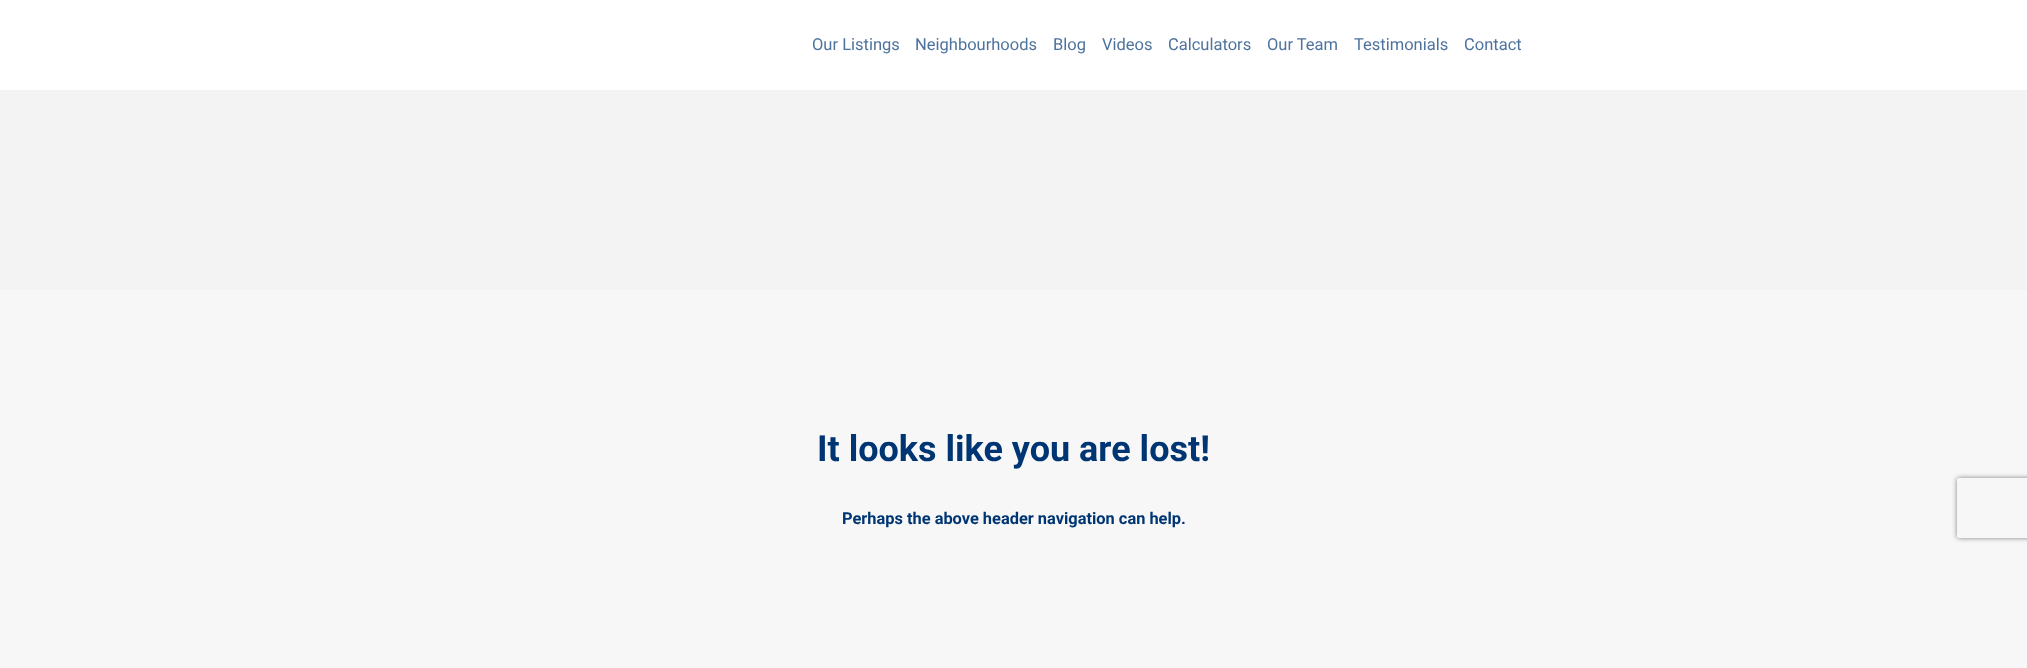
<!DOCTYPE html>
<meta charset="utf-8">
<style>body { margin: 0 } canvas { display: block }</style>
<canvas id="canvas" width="2027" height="668"></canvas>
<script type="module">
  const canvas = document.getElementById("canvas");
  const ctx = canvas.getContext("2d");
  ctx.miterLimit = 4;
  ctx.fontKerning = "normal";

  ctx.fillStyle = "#f7f7f7";
  ctx.fillRect(0, 0, 2027, 668);
  ctx.fillStyle = "#ffffff";
  ctx.fillRect(0, 0, 2027, 90);
  ctx.font = "16.5px Roboto";
  ctx.fillStyle = "#4d729d";
  ctx.fillText("Our Listings", 812, 50);
  ctx.fillText("Neighbourhoods", 915, 50);
  ctx.fillText("Blog", 1053, 50);
  ctx.fillText("Videos", 1102, 50);
  ctx.fillText("Calculators", 1168, 50);
  ctx.fillText("Our Team", 1267, 50);
  ctx.fillText("Testimonials", 1354, 50);
  ctx.fillText("Contact", 1464, 50);
  ctx.fillStyle = "#f3f3f3";
  ctx.fillRect(0, 90, 2027, 200);
  ctx.font = "bold 36px Roboto";
  ctx.fillStyle = "#003573";
  ctx.fillText("It looks like you are lost!", 817, 461);
  ctx.font = "bold 16.4px Roboto";
  ctx.fillText("Perhaps the above header navigation can help.", 842, 524);
  ctx.save();
  ctx.beginPath();
  ctx.moveTo(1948, 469);
  ctx.lineTo(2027, 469);
  ctx.lineTo(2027, 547);
  ctx.lineTo(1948, 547);
  ctx.closePath();
  ctx.moveTo(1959, 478);
  ctx.lineTo(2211, 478);
  ctx.bezierCurveTo(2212, 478, 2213, 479, 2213, 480);
  ctx.lineTo(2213, 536);
  ctx.bezierCurveTo(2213, 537, 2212, 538, 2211, 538);
  ctx.lineTo(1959, 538);
  ctx.bezierCurveTo(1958, 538, 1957, 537, 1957, 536);
  ctx.lineTo(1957, 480);
  ctx.bezierCurveTo(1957, 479, 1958, 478, 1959, 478);
  ctx.closePath();
  ctx.clip("evenodd");
  ctx.fillStyle = "#808080";
  ctx.filter = "blur(2.5px)";
  ctx.beginPath();
  ctx.roundRect(1957, 478, 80, 60, 2);
  ctx.fill();
  ctx.filter = "none";
  ctx.restore();
</script>
